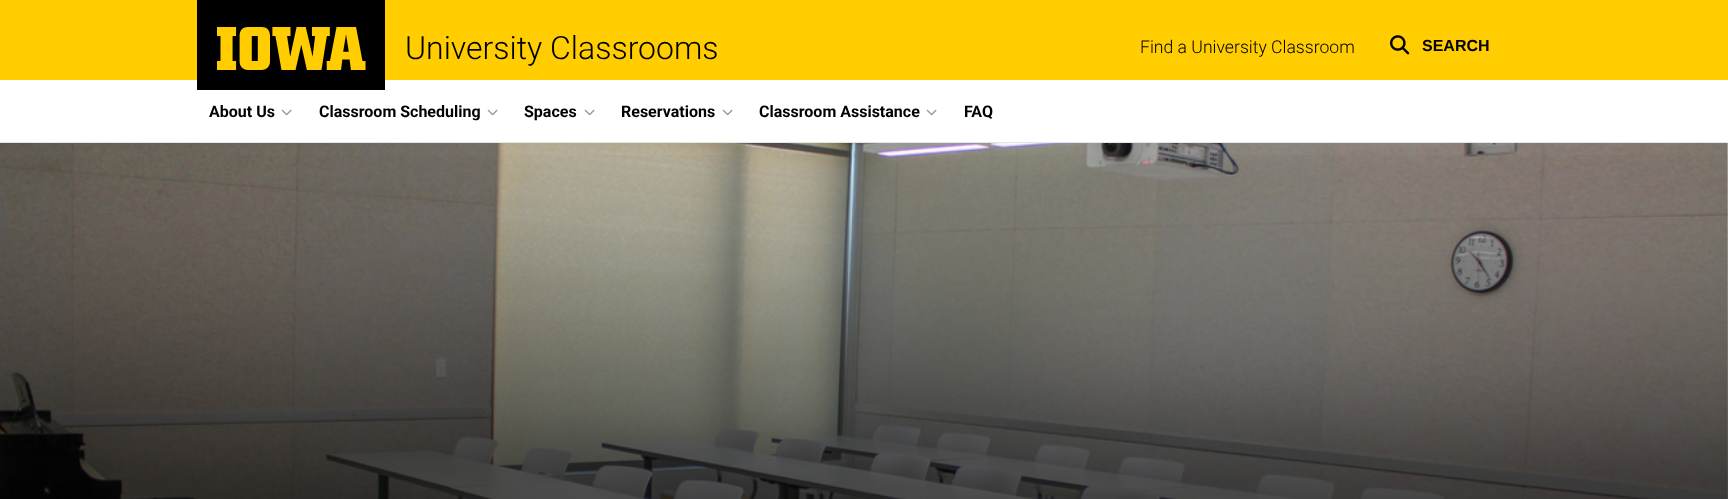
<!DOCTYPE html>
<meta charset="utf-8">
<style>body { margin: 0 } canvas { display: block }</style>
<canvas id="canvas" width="1728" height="499"></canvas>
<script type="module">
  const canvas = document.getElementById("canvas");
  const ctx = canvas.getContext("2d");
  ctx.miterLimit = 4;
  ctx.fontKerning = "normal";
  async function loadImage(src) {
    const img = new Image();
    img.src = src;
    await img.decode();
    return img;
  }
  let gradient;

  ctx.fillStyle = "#ffffff";
  ctx.fillRect(0, 0, 1728, 499);
  ctx.fillStyle = "#ffcd00";
  ctx.fillRect(0, 0, 1728, 80);
  ctx.fillStyle = "#000000";
  ctx.fillRect(197, 0, 188, 90);
  ctx.drawImage(await loadImage("img1.png"), 217, 27, 149, 43);
  ctx.font = "300 32px Roboto";
  ctx.fillText("University Classrooms", 405, 59);
  ctx.font = "300 17.6px Roboto";
  ctx.fillText("Find a University Classroom", 1140, 53);
  ctx.drawImage(await loadImage("img2.png"), 1390, 35, 20, 20);
  ctx.font = "bold 16px Liberation Sans";
  ctx.fillText("SEARCH", 1422, 51);
  ctx.fillStyle = "#e6e5e5";
  ctx.fillRect(0, 142, 1728, 1);
  ctx.font = "bold 16px Roboto";
  ctx.fillStyle = "#000000";
  ctx.fillText("About Us", 209, 117);
  ctx.drawImage(await loadImage("img3.png"), 281, 109, 11, 7);
  ctx.fillText("Classroom Scheduling", 319, 117);
  ctx.drawImage(await loadImage("img3.png"), 487, 109, 11, 7);
  ctx.fillText("Spaces", 524, 117);
  ctx.drawImage(await loadImage("img3.png"), 584, 109, 11, 7);
  ctx.fillText("Reservations", 621, 117);
  ctx.drawImage(await loadImage("img3.png"), 722, 109, 11, 7);
  ctx.fillText("Classroom Assistance", 759, 117);
  ctx.drawImage(await loadImage("img3.png"), 926, 109, 11, 7);
  ctx.fillText("FAQ", 964, 117);
  ctx.drawImage(await loadImage("img4.png"), 0, 143, 1728, 356);
  gradient = ctx.createLinearGradient(864, 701, 864, 143);
  gradient.addColorStop(0, "rgba(0, 0, 0, 0.8)");
  gradient.addColorStop(0.4, "rgba(0, 0, 0, 0.6)");
  gradient.addColorStop(1, "rgba(0, 0, 0, 0)");
  ctx.fillStyle = gradient;
  ctx.fillRect(0, 155, 1728, 344);
</script>
